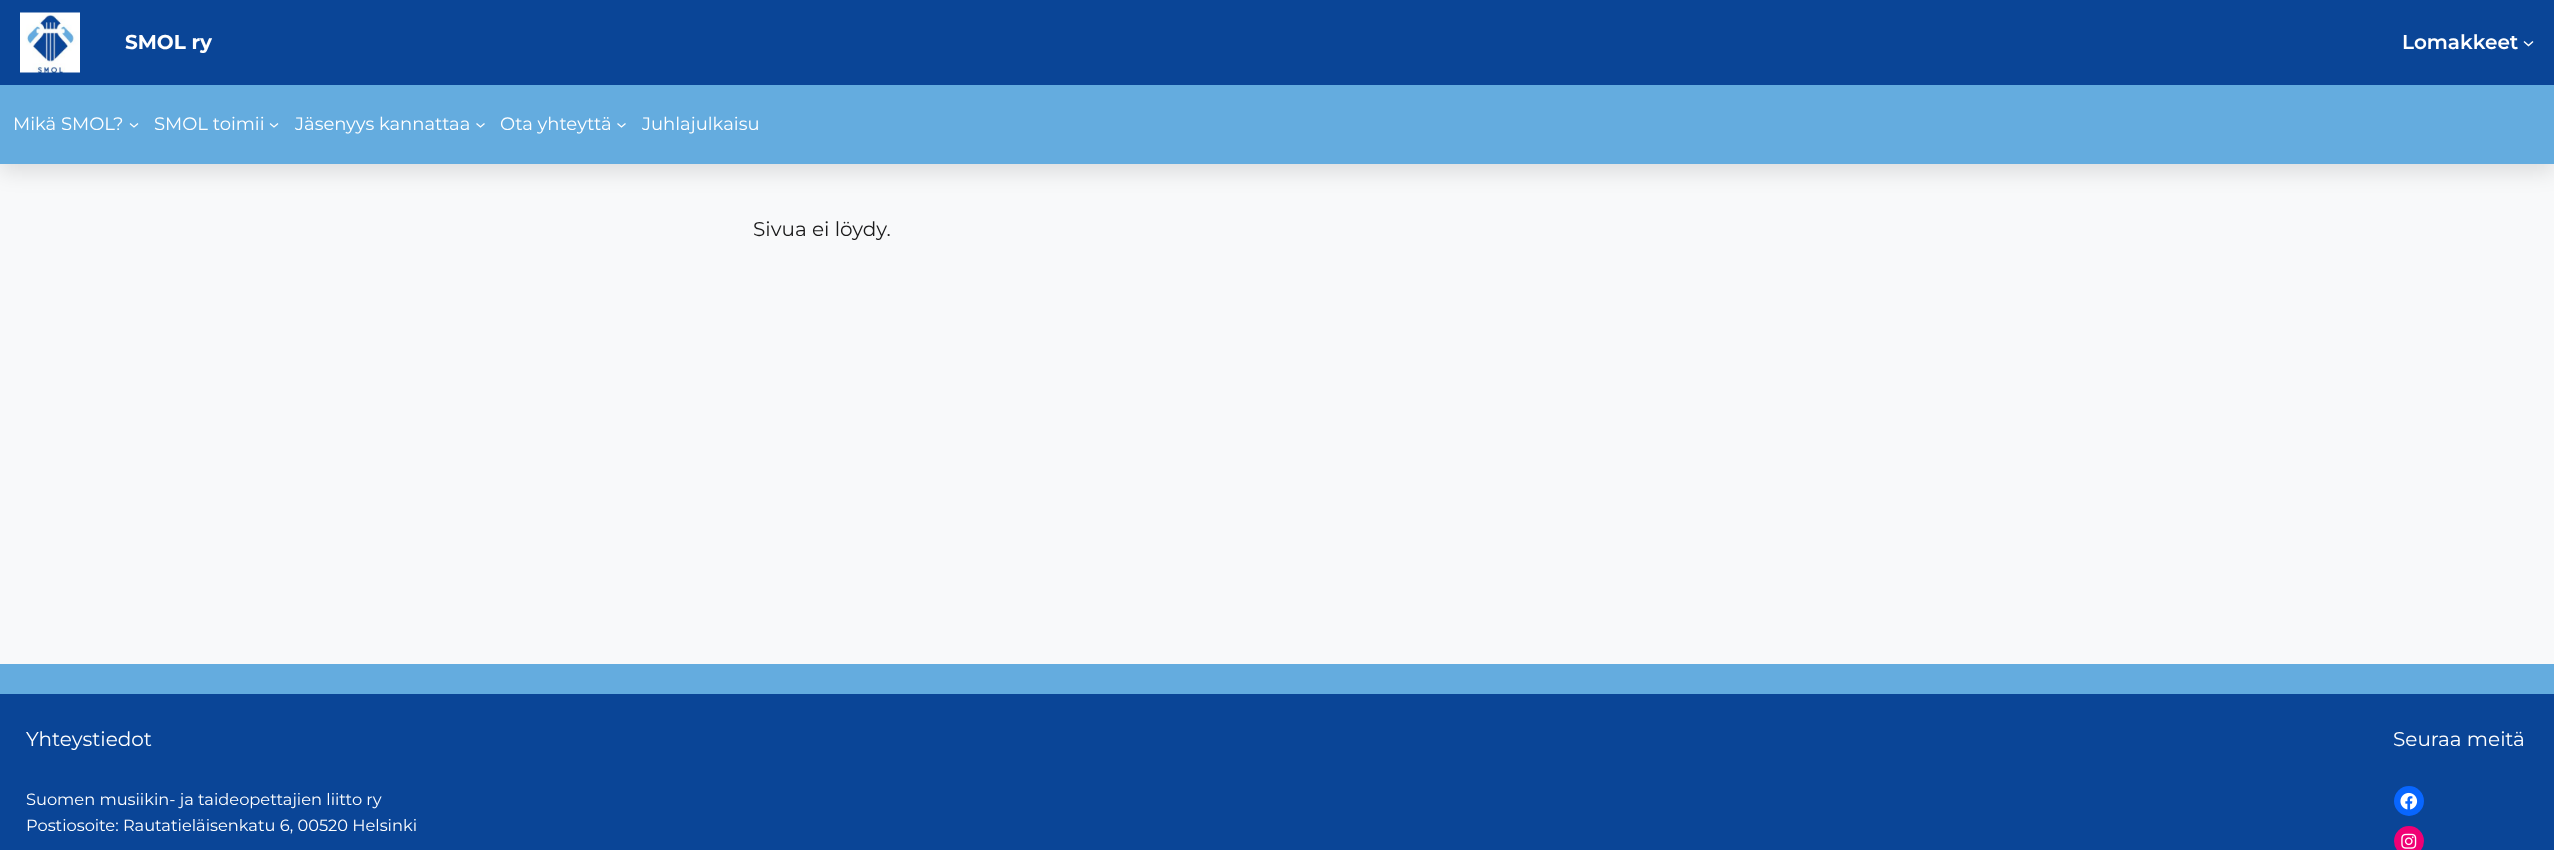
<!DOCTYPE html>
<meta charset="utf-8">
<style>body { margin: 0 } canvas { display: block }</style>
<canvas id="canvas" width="2554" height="850"></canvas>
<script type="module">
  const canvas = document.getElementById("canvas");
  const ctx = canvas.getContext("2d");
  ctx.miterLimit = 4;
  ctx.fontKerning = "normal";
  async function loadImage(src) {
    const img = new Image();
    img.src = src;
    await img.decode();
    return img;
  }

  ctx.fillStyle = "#64acdf";
  ctx.fillRect(0, 0, 2554, 850);
  ctx.fillStyle = "#f8f9fa";
  ctx.fillRect(0, 164, 2554, 500);
  ctx.fillStyle = "rgba(0, 0, 0, 0.12)";
  ctx.filter = "blur(11px)";
  ctx.beginPath();
  ctx.rect(0, 8, 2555, 163);
  ctx.fill();
  ctx.filter = "none";
  ctx.fillStyle = "#0a4597";
  ctx.fillRect(0, 0, 2554, 85);
  ctx.drawImage(await loadImage("img1.png"), 20, 12, 60, 61);
  ctx.font = "bold 20px Montserrat";
  ctx.fillStyle = "#ffffff";
  ctx.fillText("SMOL ry", 125, 49);
  ctx.font = "600 20px Montserrat";
  ctx.fillText("Lomakkeet", 2402, 49);
  ctx.beginPath();
  ctx.moveTo(2524, 41.5);
  ctx.lineTo(2528.5, 45.5);
  ctx.lineTo(2533, 41.5);
  ctx.strokeStyle = "#ffffff";
  ctx.lineWidth = 1.5;
  ctx.stroke();
  ctx.fillStyle = "#64acdf";
  ctx.fillRect(0, 85, 2554, 79);
  ctx.font = "18px Montserrat";
  ctx.fillStyle = "#ffffff";
  ctx.fillText("Mikä SMOL?", 13, 130);
  ctx.beginPath();
  ctx.moveTo(130, 123.5);
  ctx.lineTo(134, 127);
  ctx.lineTo(138, 123.5);
  ctx.lineWidth = 1.3;
  ctx.stroke();
  ctx.fillText("SMOL toimii", 154, 130);
  ctx.beginPath();
  ctx.moveTo(270, 123.5);
  ctx.lineTo(274, 127);
  ctx.lineTo(278, 123.5);
  ctx.stroke();
  ctx.fillText("Jäsenyys kannattaa", 295, 130);
  ctx.beginPath();
  ctx.moveTo(476.5, 123.5);
  ctx.lineTo(480.5, 127);
  ctx.lineTo(484.5, 123.5);
  ctx.stroke();
  ctx.fillText("Ota yhteyttä", 500, 130);
  ctx.beginPath();
  ctx.moveTo(617.5, 123.5);
  ctx.lineTo(621.5, 127);
  ctx.lineTo(625.5, 123.5);
  ctx.stroke();
  ctx.fillText("Juhlajulkaisu", 642, 130);
  ctx.font = "20px Montserrat";
  ctx.fillStyle = "#1a1a1a";
  ctx.fillText("Sivua ei löydy.", 753, 236);
  ctx.fillStyle = "#0a4597";
  ctx.fillRect(0, 694, 2554, 156);
  ctx.fillStyle = "#ffffff";
  ctx.fillText("Yhteystiedot", 26, 746);
  ctx.font = "16.25px Montserrat";
  ctx.fillText("Suomen musiikin- ja taideopettajien liitto ry", 26, 805);
  ctx.fillText("Postiosoite: Rautatieläisenkatu 6, 00520 Helsinki", 26, 831);
  ctx.font = "20px Montserrat";
  ctx.fillText("Seuraa meitä", 2393, 746);
  ctx.fillStyle = "#0866ff";
  ctx.beginPath();
  ctx.arc(2409, 801, 15, 0, Math.PI * 2);
  ctx.fill();
  ctx.drawImage(await loadImage("img2.png"), 2400, 792, 18, 18);
  ctx.fillStyle = "#f00075";
  ctx.beginPath();
  ctx.arc(2409, 841, 15, 0, Math.PI * 2);
  ctx.fill();
  ctx.drawImage(await loadImage("img3.png"), 2401, 833, 16, 16);
</script>
